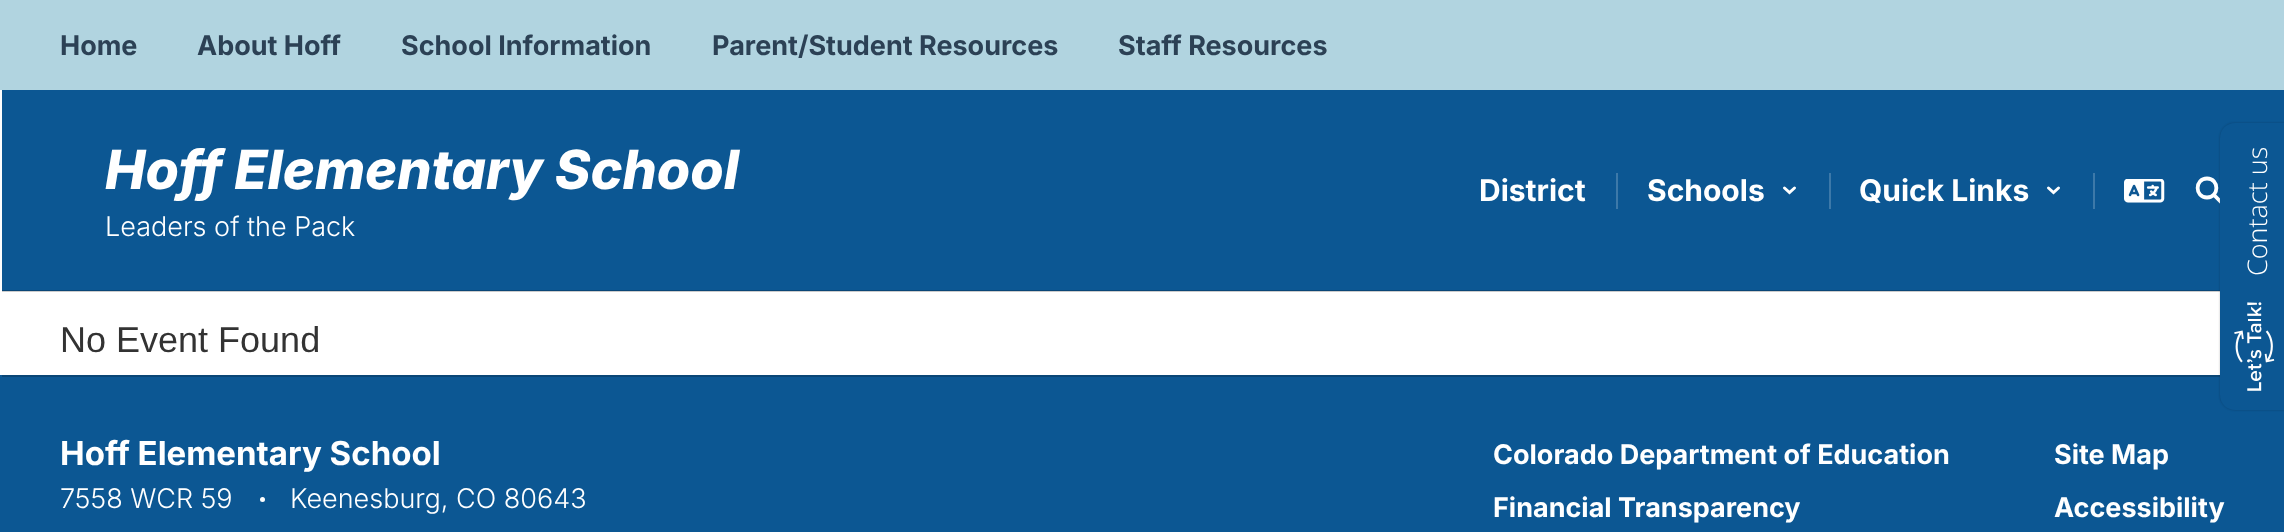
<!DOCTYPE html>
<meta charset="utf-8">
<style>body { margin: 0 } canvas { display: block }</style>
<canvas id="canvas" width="2284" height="532"></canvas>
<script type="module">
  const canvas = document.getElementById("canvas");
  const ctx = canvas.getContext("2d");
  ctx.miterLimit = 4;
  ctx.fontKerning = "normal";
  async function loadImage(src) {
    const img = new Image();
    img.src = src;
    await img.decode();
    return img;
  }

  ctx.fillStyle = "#ffffff";
  ctx.fillRect(0, 0, 2284, 532);
  ctx.fillStyle = "#cccccc";
  ctx.fillRect(2, 291, 2218, 1);
  ctx.fillStyle = "#b1d4e0";
  ctx.fillRect(0, 0, 2284, 90);
  ctx.font = "bold 27px Inter";
  ctx.fillStyle = "#2c4155";
  ctx.fillText("Home", 60, 55);
  ctx.fillText("About Hoff", 197, 55);
  ctx.fillText("School Information", 401, 55);
  ctx.fillText("Parent/Student Resources", 712, 55);
  ctx.fillText("Staff Resources", 1118, 55);
  ctx.fillStyle = "#0c5793";
  ctx.fillRect(2, 90, 2282, 200);
  ctx.fillStyle = "#0a4676";
  ctx.fillRect(2, 290, 2218, 1);
  ctx.font = "italic 800 54px Inter";
  ctx.fillStyle = "#ffffff";
  ctx.fillText("Hoff Elementary School", 105, 189);
  ctx.font = "300 27px Inter";
  ctx.fillText("Leaders of the Pack", 105, 236);
  ctx.fillStyle = "#3d79a9";
  ctx.fillRect(1616, 173, 2, 36);
  ctx.font = "bold 30px Inter";
  ctx.fillStyle = "#ffffff";
  ctx.fillText("District", 1479, 201);
  ctx.fillStyle = "#3d79a9";
  ctx.fillRect(1829, 173, 2, 36);
  ctx.fillStyle = "#ffffff";
  ctx.fillText("Schools", 1647, 201);
  ctx.beginPath();
  ctx.moveTo(1784.5, 188);
  ctx.lineTo(1789.5, 192.5);
  ctx.lineTo(1794.5, 188);
  ctx.strokeStyle = "#ffffff";
  ctx.lineWidth = 3;
  ctx.lineCap = "round";
  ctx.stroke();
  ctx.fillStyle = "#3d79a9";
  ctx.fillRect(2093, 173, 2, 36);
  ctx.fillStyle = "#ffffff";
  ctx.fillText("Quick Links", 1859, 201);
  ctx.beginPath();
  ctx.moveTo(2048.5, 188);
  ctx.lineTo(2053.5, 192.5);
  ctx.lineTo(2058.5, 188);
  ctx.stroke();
  ctx.drawImage(await loadImage("img1.png"), 2124, 179, 41, 24);
  ctx.beginPath();
  ctx.moveTo(2207, 197.5);
  ctx.bezierCurveTo(2219.5, 197.5, 2219.5, 178.5, 2207, 178.5);
  ctx.bezierCurveTo(2194.5, 178.5, 2194.5, 197.5, 2207, 197.5);
  ctx.closePath();
  ctx.lineWidth = 3.8;
  ctx.lineCap = "square";
  ctx.lineJoin = "round";
  ctx.stroke();
  ctx.beginPath();
  ctx.moveTo(2221.5, 202.5);
  ctx.lineTo(2214, 195);
  ctx.lineCap = "round";
  ctx.stroke();
  ctx.fillStyle = "#0c5793";
  ctx.fillRect(0, 375, 2284, 157);
  ctx.fillStyle = "#0a4676";
  ctx.fillRect(2, 375, 2218, 2);
  ctx.fillStyle = "rgba(0, 0, 0, 0.22)";
  ctx.filter = "blur(1px)";
  ctx.beginPath();
  ctx.roundRect(2220, 123, 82, 287, 15);
  ctx.fill();
  ctx.filter = "none";
  ctx.fillStyle = "#0c5793";
  ctx.beginPath();
  ctx.moveTo(2235, 123);
  ctx.lineTo(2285, 123);
  ctx.lineTo(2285, 410);
  ctx.lineTo(2235, 410);
  ctx.bezierCurveTo(2226.5, 410, 2220, 403.5, 2220, 395);
  ctx.lineTo(2220, 138);
  ctx.bezierCurveTo(2220, 129.5, 2226.5, 123, 2235, 123);
  ctx.closePath();
  ctx.fill();
  ctx.font = "300 27px Open Sans";
  ctx.fillStyle = "#ffffff";
  ctx.save();
  ctx.translate(2267, 276);
  ctx.rotate(-90 * Math.PI / 180);
  ctx.fillText("Contact us", 0, 0);
  ctx.restore();
  ctx.drawImage(await loadImage("img2.png"), 2234, 302, 41, 89);
  ctx.font = "36px Liberation Sans";
  ctx.fillStyle = "#333333";
  ctx.fillText("No Event Found", 60, 352);
  ctx.font = "bold 33px Inter";
  ctx.fillStyle = "#ffffff";
  ctx.fillText("Hoff Elementary School", 60, 465);
  ctx.font = "300 27px Inter";
  ctx.fillText("7558 WCR 59", 60, 508);
  ctx.beginPath();
  ctx.arc(262.5, 499.5, 2.5, 0, Math.PI * 2);
  ctx.fill();
  ctx.fillText("Keenesburg, CO 80643", 290, 508);
  ctx.font = "bold 27px Inter";
  ctx.fillText("Colorado Department of Education", 1493, 464);
  ctx.fillText("Financial Transparency", 1493, 517);
  ctx.fillText("Site Map", 2054, 464);
  ctx.fillText("Accessibility", 2054, 517);
</script>
